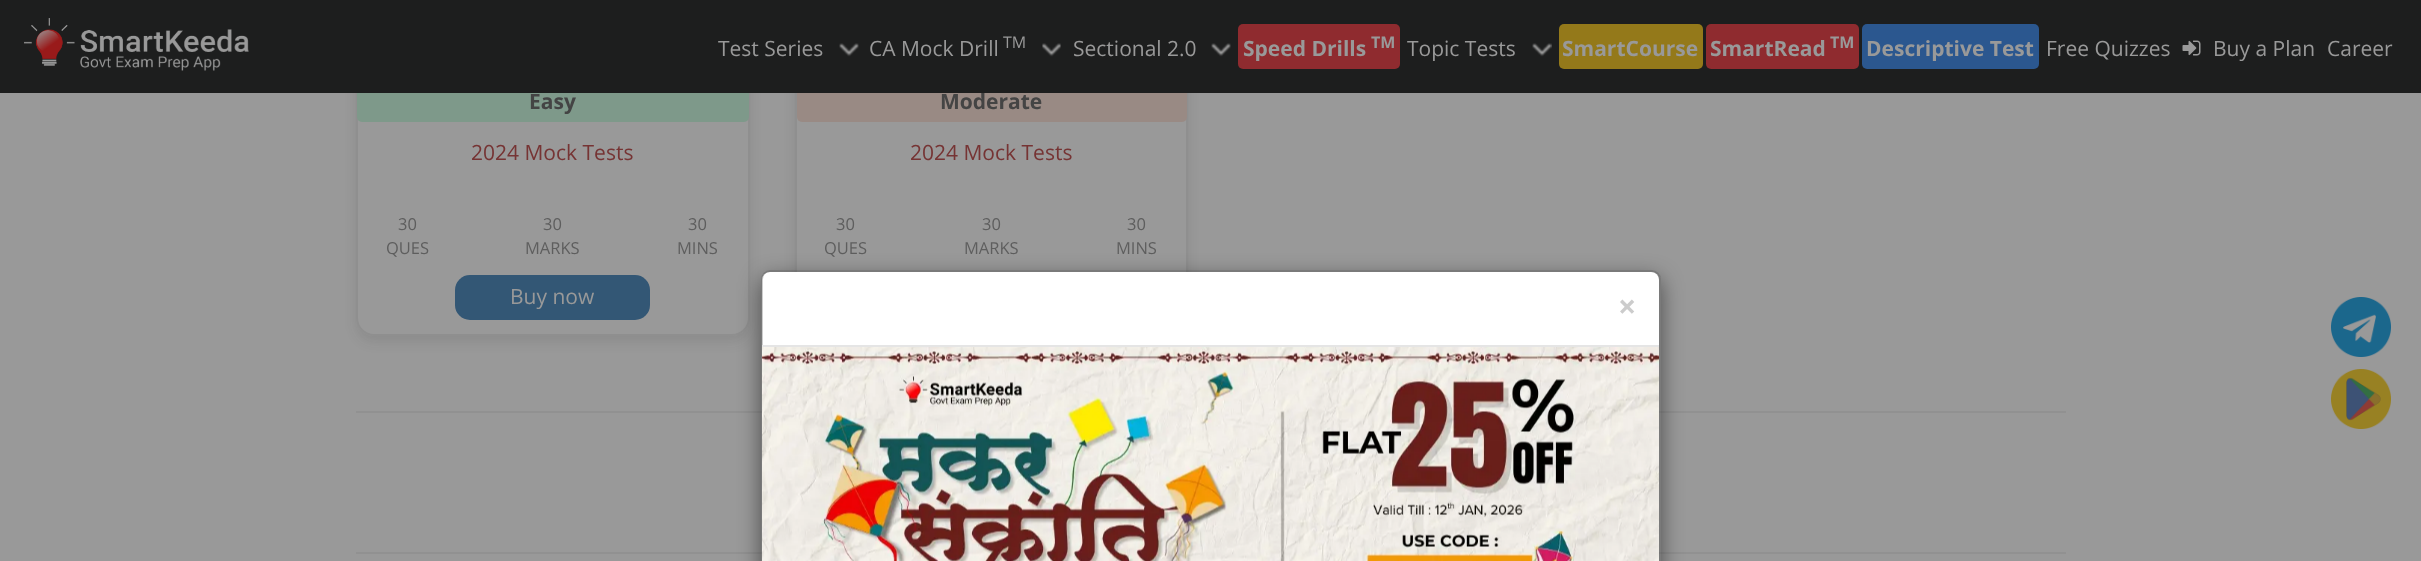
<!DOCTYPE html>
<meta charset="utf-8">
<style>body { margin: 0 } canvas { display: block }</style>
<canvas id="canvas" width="2421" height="561"></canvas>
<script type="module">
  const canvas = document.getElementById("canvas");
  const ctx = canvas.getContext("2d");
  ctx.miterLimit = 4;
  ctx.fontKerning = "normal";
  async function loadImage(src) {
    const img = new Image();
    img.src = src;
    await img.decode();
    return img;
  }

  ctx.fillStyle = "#999999";
  ctx.fillRect(0, 0, 2421, 561);
  ctx.save();
  ctx.beginPath();
  ctx.moveTo(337, 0);
  ctx.lineTo(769, 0);
  ctx.lineTo(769, 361);
  ctx.lineTo(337, 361);
  ctx.closePath();
  ctx.moveTo(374, -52);
  ctx.lineTo(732, -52);
  ctx.bezierCurveTo(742, -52, 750, -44, 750, -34);
  ctx.lineTo(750, 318);
  ctx.bezierCurveTo(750, 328, 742, 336, 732, 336);
  ctx.lineTo(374, 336);
  ctx.bezierCurveTo(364, 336, 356, 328, 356, 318);
  ctx.lineTo(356, -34);
  ctx.bezierCurveTo(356, -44, 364, -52, 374, -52);
  ctx.closePath();
  ctx.clip("evenodd");
  ctx.fillStyle = "rgba(26, 26, 26, 0.1)";
  ctx.filter = "blur(6px)";
  ctx.beginPath();
  ctx.roundRect(356, -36, 394, 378, 18);
  ctx.fill();
  ctx.filter = "none";
  ctx.restore();
  ctx.beginPath();
  ctx.roundRect(357, -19, 392, 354, 17);
  ctx.strokeStyle = "#8f8f8f";
  ctx.lineWidth = 2;
  ctx.stroke();
  ctx.fillStyle = "#7e998a";
  ctx.beginPath();
  ctx.roundRect(357, 80, 392, 42, 5);
  ctx.fill();
  ctx.save();
  ctx.beginPath();
  ctx.moveTo(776, 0);
  ctx.lineTo(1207, 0);
  ctx.lineTo(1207, 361);
  ctx.lineTo(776, 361);
  ctx.closePath();
  ctx.moveTo(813, -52);
  ctx.lineTo(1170, -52);
  ctx.bezierCurveTo(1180, -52, 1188, -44, 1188, -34);
  ctx.lineTo(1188, 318);
  ctx.bezierCurveTo(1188, 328, 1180, 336, 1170, 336);
  ctx.lineTo(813, 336);
  ctx.bezierCurveTo(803, 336, 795, 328, 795, 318);
  ctx.lineTo(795, -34);
  ctx.bezierCurveTo(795, -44, 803, -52, 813, -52);
  ctx.closePath();
  ctx.clip("evenodd");
  ctx.fillStyle = "rgba(26, 26, 26, 0.1)";
  ctx.filter = "blur(6px)";
  ctx.beginPath();
  ctx.roundRect(795, -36, 393, 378, 18);
  ctx.fill();
  ctx.filter = "none";
  ctx.restore();
  ctx.strokeRect(796, -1, 391, 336);
  ctx.fillStyle = "#998a84";
  ctx.beginPath();
  ctx.roundRect(797, 80, 390, 42, 5);
  ctx.fill();
  ctx.fillStyle = "#1d1e1e";
  ctx.fillRect(0, 0, 2421, 93);
  ctx.drawImage(await loadImage("img1.png"), 24, 18, 225, 53);
  ctx.font = "21px Open Sans";
  ctx.fillStyle = "#999999";
  ctx.fillText("Test Series", 718, 56);
  ctx.drawImage(await loadImage("img2.png"), 839, 43, 20, 14);
  ctx.fillText("CA Mock Drill", 869, 56);
  ctx.font = "16px Open Sans";
  ctx.fillText("TM", 1003, 48);
  ctx.drawImage(await loadImage("img3.png"), 1042, 43, 19, 14);
  ctx.font = "21px Open Sans";
  ctx.fillText("Sectional 2.0", 1073, 56);
  ctx.drawImage(await loadImage("img2.png"), 1211, 43, 20, 14);
  ctx.fillStyle = "#8f2b2f";
  ctx.beginPath();
  ctx.roundRect(1238, 24, 162, 45, 5);
  ctx.fill();
  ctx.font = "bold 21px Open Sans";
  ctx.fillStyle = "#999999";
  ctx.fillText("Speed Drills", 1243, 56);
  ctx.font = "bold 16px Open Sans";
  ctx.fillText("TM", 1371, 48);
  ctx.font = "21px Open Sans";
  ctx.fillText("Topic Tests", 1407, 56);
  ctx.drawImage(await loadImage("img4.png"), 1532, 43, 20, 14);
  ctx.fillStyle = "#94791a";
  ctx.beginPath();
  ctx.roundRect(1559, 24, 144, 45, 5);
  ctx.fill();
  ctx.font = "bold 21px Open Sans";
  ctx.fillStyle = "#999999";
  ctx.fillText("SmartCourse", 1562, 56);
  ctx.fillStyle = "#8f2b2f";
  ctx.beginPath();
  ctx.roundRect(1706, 24, 153, 45, 5);
  ctx.fill();
  ctx.fillStyle = "#999999";
  ctx.fillText("SmartRead", 1710, 56);
  ctx.font = "bold 16px Open Sans";
  ctx.fillText("TM", 1830, 48);
  ctx.fillStyle = "#2b578f";
  ctx.beginPath();
  ctx.roundRect(1862, 24, 177, 45, 5);
  ctx.fill();
  ctx.font = "bold 21px Open Sans";
  ctx.fillStyle = "#999999";
  ctx.fillText("Descriptive Test", 1866, 56);
  ctx.font = "21px Open Sans";
  ctx.fillText("Free Quizzes", 2046, 56);
  ctx.drawImage(await loadImage("img5.png"), 2182, 40, 19, 16);
  ctx.fillText("Buy a Plan", 2213, 56);
  ctx.fillText("Career", 2327, 56);
  ctx.font = "bold 21px Open Sans";
  ctx.fillStyle = "#444444";
  ctx.fillText("Easy", 529, 109);
  ctx.font = "21px Open Sans";
  ctx.fillStyle = "#763434";
  ctx.fillText("2024 Mock Tests", 471, 160);
  ctx.font = "16.5px Open Sans";
  ctx.fillStyle = "#5e5e5e";
  ctx.fillText("30", 398, 230);
  ctx.fillText("QUES", 386, 254);
  ctx.fillText("30", 543, 230);
  ctx.fillText("MARKS", 525, 254);
  ctx.fillText("30", 688, 230);
  ctx.fillText("MINS", 677, 254);
  ctx.fillStyle = "#335775";
  ctx.beginPath();
  ctx.roundRect(455, 275, 195, 45, 15);
  ctx.fill();
  ctx.font = "21px Open Sans";
  ctx.fillStyle = "#999999";
  ctx.fillText("Buy now", 510, 304);
  ctx.font = "bold 21px Open Sans";
  ctx.fillStyle = "#444444";
  ctx.fillText("Moderate", 940, 109);
  ctx.font = "21px Open Sans";
  ctx.fillStyle = "#763434";
  ctx.fillText("2024 Mock Tests", 910, 160);
  ctx.font = "16.5px Open Sans";
  ctx.fillStyle = "#5e5e5e";
  ctx.fillText("30", 836, 230);
  ctx.fillText("QUES", 824, 254);
  ctx.fillText("30", 982, 230);
  ctx.fillText("MARKS", 964, 254);
  ctx.fillText("30", 1127, 230);
  ctx.fillText("MINS", 1116, 254);
  ctx.fillStyle = "#919191";
  ctx.fillRect(356, 411, 1710, 2);
  ctx.fillRect(356, 552, 1710, 2);
  ctx.drawImage(await loadImage("img6.png"), 2331, 297, 60, 60);
  ctx.drawImage(await loadImage("img7.png"), 2331, 369, 60, 60);
  ctx.save();
  ctx.beginPath();
  ctx.moveTo(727, 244);
  ctx.lineTo(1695, 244);
  ctx.lineTo(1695, 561);
  ctx.lineTo(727, 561);
  ctx.closePath();
  ctx.moveTo(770, 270);
  ctx.lineTo(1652, 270);
  ctx.bezierCurveTo(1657, 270, 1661, 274, 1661, 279);
  ctx.lineTo(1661, 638);
  ctx.bezierCurveTo(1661, 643, 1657, 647, 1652, 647);
  ctx.lineTo(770, 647);
  ctx.bezierCurveTo(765, 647, 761, 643, 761, 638);
  ctx.lineTo(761, 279);
  ctx.bezierCurveTo(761, 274, 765, 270, 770, 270);
  ctx.closePath();
  ctx.clip("evenodd");
  ctx.fillStyle = "rgba(0, 0, 0, 0.5)";
  ctx.filter = "blur(11px)";
  ctx.beginPath();
  ctx.roundRect(761, 278, 900, 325, 9);
  ctx.fill();
  ctx.filter = "none";
  ctx.restore();
  ctx.fillStyle = "#ffffff";
  ctx.beginPath();
  ctx.roundRect(762, 272, 897, 289, [8, 8, 0, 0]);
  ctx.fill();
  ctx.beginPath();
  ctx.roundRect(762, 271, 898, 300, 8);
  ctx.strokeStyle = "rgba(0, 0, 0, 0.2)";
  ctx.stroke();
  ctx.fillStyle = "#e5e5e5";
  ctx.fillRect(762, 345, 897, 2);
  ctx.font = "bold 32px Open Sans";
  ctx.fillStyle = "#cccccc";
  ctx.fillText("×", 1618, 318);
  ctx.drawImage(await loadImage("img8.png"), 762, 347, 897, 214);
</script>
